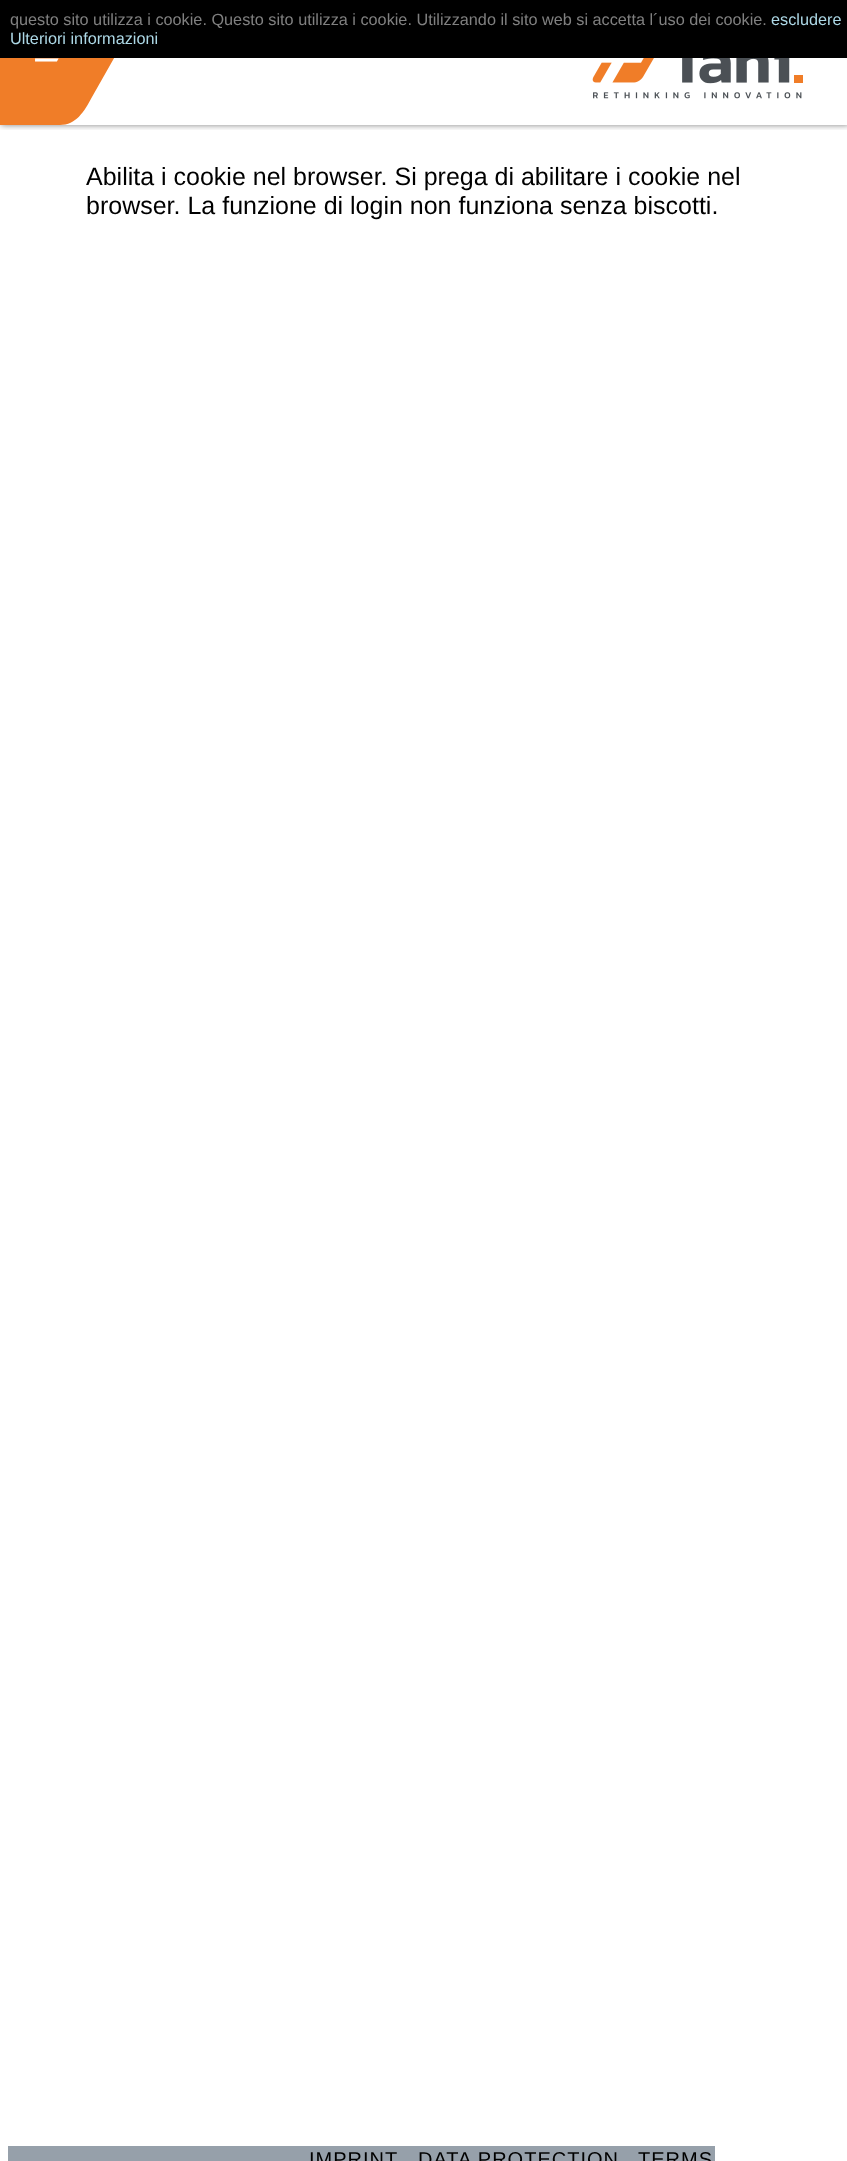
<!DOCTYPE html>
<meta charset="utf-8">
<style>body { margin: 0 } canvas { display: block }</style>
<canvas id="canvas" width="847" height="2161"></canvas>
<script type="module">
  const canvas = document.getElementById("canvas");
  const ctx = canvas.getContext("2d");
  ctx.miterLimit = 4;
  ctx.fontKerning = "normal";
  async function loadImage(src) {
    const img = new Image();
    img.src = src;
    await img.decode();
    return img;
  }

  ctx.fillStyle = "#ffffff";
  ctx.fillRect(0, 0, 847, 2161);
  ctx.save();
  ctx.beginPath();
  ctx.rect(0, 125, 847, 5);
  ctx.clip();
  ctx.fillStyle = "rgba(0, 0, 0, 0.5)";
  ctx.filter = "blur(3px)";
  ctx.beginPath();
  ctx.rect(1, 0, 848, 125);
  ctx.fill();
  ctx.filter = "none";
  ctx.restore();
  ctx.fillStyle = "#f07d28";
  ctx.beginPath();
  ctx.moveTo(60, 125);
  ctx.lineTo(-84, 125);
  ctx.lineTo(-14, 0);
  ctx.lineTo(147, 0);
  ctx.lineTo(92, 97);
  ctx.bezierCurveTo(84, 112, 76, 125, 60, 125);
  ctx.closePath();
  ctx.fill();
  ctx.drawImage(await loadImage("img1.png"), 35, 58, 24, 4);
  ctx.drawImage(await loadImage("img2.png"), 592, 58, 211, 41);
  ctx.fillStyle = "#000000";
  ctx.fillRect(0, 0, 847, 58);
  ctx.font = "16.25px Liberation Sans";
  ctx.fillStyle = "#808080";
  ctx.fillText("questo sito utilizza i cookie. Questo sito utilizza i cookie. Utilizzando il sito web si accetta l´uso dei cookie.", 10, 25);
  ctx.fillStyle = "#add8e6";
  ctx.fillText("escludere", 771, 25);
  ctx.fillText("Ulteriori informazioni", 10, 44);
  ctx.font = "25px Liberation Sans";
  ctx.fillStyle = "#000000";
  ctx.fillText("Abilita i cookie nel browser. Si prega di abilitare i cookie nel", 86, 185);
  ctx.fillText("browser. La funzione di login non funziona senza biscotti.", 86, 214);
  ctx.fillStyle = "#96a0aa";
  ctx.fillRect(8, 2146, 707, 15);
  ctx.letterSpacing = "1px";
  ctx.font = "20px Liberation Sans";
  ctx.fillStyle = "#000000";
  ctx.fillText("IMPRINT", 309, 2166);
  ctx.fillText("DATA PROTECTION", 418, 2166);
  ctx.fillText("TERMS", 638, 2166);
</script>
